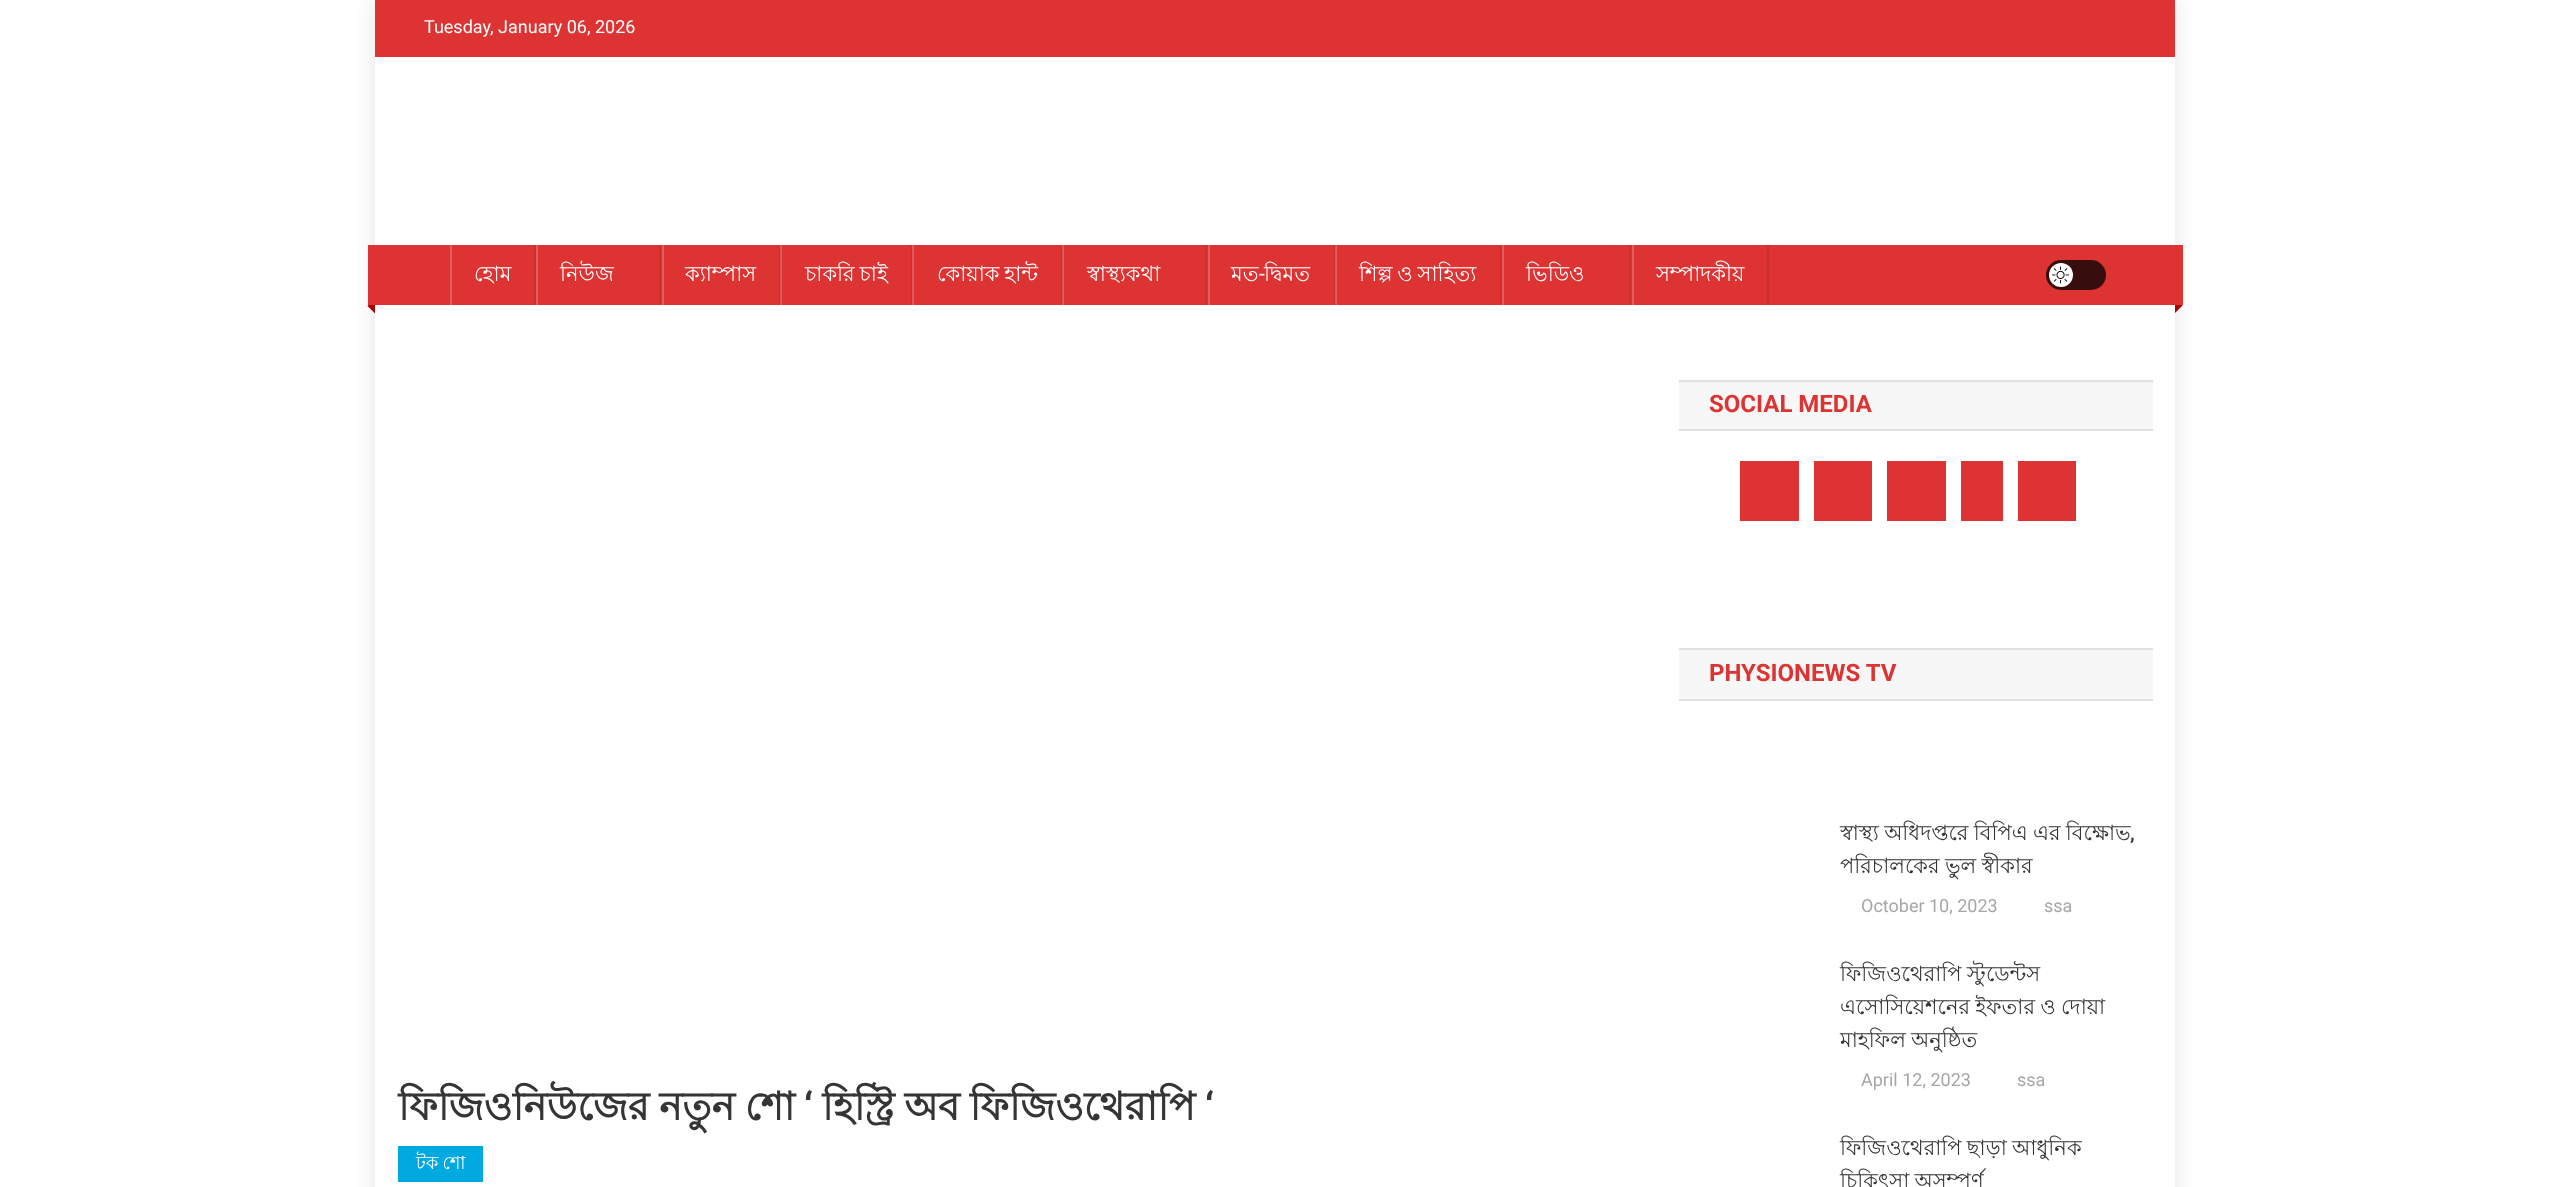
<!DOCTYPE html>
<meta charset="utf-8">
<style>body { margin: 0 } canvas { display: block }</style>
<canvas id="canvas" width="2549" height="1187"></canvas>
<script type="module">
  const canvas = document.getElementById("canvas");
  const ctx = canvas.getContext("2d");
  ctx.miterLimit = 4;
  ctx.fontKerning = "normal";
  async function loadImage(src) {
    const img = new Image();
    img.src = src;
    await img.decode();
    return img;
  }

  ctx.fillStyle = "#ffffff";
  ctx.fillRect(0, 0, 2549, 1187);
  ctx.save();
  ctx.beginPath();
  ctx.moveTo(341, 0);
  ctx.lineTo(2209, 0);
  ctx.lineTo(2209, 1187);
  ctx.lineTo(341, 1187);
  ctx.closePath();
  ctx.moveTo(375, 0);
  ctx.lineTo(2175, 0);
  ctx.lineTo(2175, 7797);
  ctx.lineTo(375, 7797);
  ctx.closePath();
  ctx.clip("evenodd");
  ctx.fillStyle = "rgba(0, 0, 0, 0.1)";
  ctx.filter = "blur(11px)";
  ctx.beginPath();
  ctx.rect(375, 0, 1800, 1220);
  ctx.fill();
  ctx.filter = "none";
  ctx.restore();
  ctx.fillStyle = "#dd3333";
  ctx.fillRect(375, 0, 1800, 57);
  ctx.font = "18px Roboto";
  ctx.fillStyle = "#ffffff";
  ctx.fillText("Tuesday, January 06, 2026", 424, 33);
  ctx.fillStyle = "#dd3333";
  ctx.fillRect(375, 245, 1800, 60);
  ctx.fillStyle = "#e45c5c";
  ctx.fillRect(1336, 245, 1, 60);
  ctx.fillRect(1063, 245, 1, 60);
  ctx.fillRect(913, 245, 1, 60);
  ctx.fillRect(781, 245, 1, 60);
  ctx.fillStyle = "#ab0101";
  ctx.beginPath();
  ctx.moveTo(375, 298.5);
  ctx.lineTo(375, 313.5);
  ctx.lineTo(367.5, 306);
  ctx.closePath();
  ctx.fill();
  ctx.fillStyle = "#dd3333";
  ctx.fillRect(368, 245, 7, 60);
  ctx.fillStyle = "#cb2f2f";
  ctx.fillRect(534, 245, 2, 60);
  ctx.fillStyle = "#e45c5c";
  ctx.fillRect(450, 245, 2, 60);
  ctx.font = "21px Lohit Bengali";
  ctx.fillStyle = "#ffffff";
  ctx.fillText("হোম", 474, 281);
  ctx.fillStyle = "#cb2f2f";
  ctx.fillRect(659, 245, 2, 60);
  ctx.fillStyle = "#e45c5c";
  ctx.fillRect(536, 245, 2, 60);
  ctx.fillStyle = "#ffffff";
  ctx.fillText("নিউজ", 560, 281);
  ctx.fillStyle = "#cb2f2f";
  ctx.fillRect(779, 245, 1, 60);
  ctx.fillStyle = "#d55959";
  ctx.fillRect(780, 245, 1, 60);
  ctx.fillStyle = "#e45c5c";
  ctx.fillRect(662, 245, 2, 60);
  ctx.fillStyle = "#ffffff";
  ctx.fillText("ক্যাম্পাস", 685, 281);
  ctx.fillStyle = "#cb2f2f";
  ctx.fillRect(911, 245, 1, 60);
  ctx.fillStyle = "#d55959";
  ctx.fillRect(912, 245, 1, 60);
  ctx.wordSpacing = "-1px";
  ctx.fillStyle = "#ffffff";
  ctx.fillText("চাকরি চাই", 805, 281);
  ctx.fillStyle = "#cb2f2f";
  ctx.fillRect(1061, 245, 1, 60);
  ctx.fillStyle = "#d55959";
  ctx.fillRect(1062, 245, 1, 60);
  ctx.fillStyle = "#ffffff";
  ctx.fillText("কোয়াক হান্ট", 937, 281);
  ctx.fillStyle = "#cb2f2f";
  ctx.fillRect(1205, 245, 2, 60);
  ctx.wordSpacing = "0px";
  ctx.fillStyle = "#ffffff";
  ctx.fillText("স্বাস্থ্যকথা", 1087, 281);
  ctx.fillStyle = "#cb2f2f";
  ctx.fillRect(1334, 245, 1, 60);
  ctx.fillStyle = "#d55959";
  ctx.fillRect(1335, 245, 1, 60);
  ctx.fillStyle = "#e45c5c";
  ctx.fillRect(1208, 245, 2, 60);
  ctx.fillStyle = "#ffffff";
  ctx.fillText("মত", 1231, 281);
  ctx.font = "21px Roboto";
  ctx.fillText("-", 1259, 281);
  ctx.font = "21px Lohit Bengali";
  ctx.fillText("দ্বিমত", 1264, 281);
  ctx.fillStyle = "#cb2f2f";
  ctx.fillRect(1500, 245, 2, 60);
  ctx.wordSpacing = "-1px";
  ctx.fillStyle = "#ffffff";
  ctx.fillText("শিল্প ও সাহিত্য", 1359, 281);
  ctx.fillStyle = "#cb2f2f";
  ctx.fillRect(1629, 245, 2, 60);
  ctx.fillStyle = "#e45c5c";
  ctx.fillRect(1502, 245, 2, 60);
  ctx.wordSpacing = "0px";
  ctx.fillStyle = "#ffffff";
  ctx.fillText("ভিডিও", 1526, 281);
  ctx.fillStyle = "#cb2f2f";
  ctx.fillRect(1767, 245, 2, 60);
  ctx.fillStyle = "#e45c5c";
  ctx.fillRect(1632, 245, 2, 60);
  ctx.fillStyle = "#ffffff";
  ctx.fillText("সম্পাদকীয়", 1656, 281);
  ctx.fillStyle = "#370d0d";
  ctx.beginPath();
  ctx.roundRect(2046, 260, 60, 30, 15);
  ctx.fill();
  ctx.fillStyle = "#ffffff";
  ctx.beginPath();
  ctx.arc(2061, 275, 12, 0, Math.PI * 2);
  ctx.fill();
  ctx.drawImage(await loadImage("img1.png"), 2052, 266, 17, 18);
  ctx.fillStyle = "#ab0101";
  ctx.beginPath();
  ctx.moveTo(2175, 313);
  ctx.lineTo(2175, 298);
  ctx.lineTo(2182.5, 305.5);
  ctx.closePath();
  ctx.fill();
  ctx.fillStyle = "#dd3333";
  ctx.fillRect(2175, 245, 8, 60);
  ctx.wordSpacing = "-1px";
  ctx.font = "bold 39px Lohit Bengali";
  ctx.fillStyle = "#353535";
  ctx.fillText("ফিজিওনিউজের নতুন শো", 398, 1120);
  ctx.wordSpacing = "0px";
  ctx.font = "bold 39px Roboto";
  ctx.fillText("‘", 804, 1120);
  ctx.wordSpacing = "-1px";
  ctx.font = "bold 39px Lohit Bengali";
  ctx.fillText("হিস্ট্রি অব ফিজিওথেরাপি", 822, 1120);
  ctx.wordSpacing = "0px";
  ctx.font = "bold 39px Roboto";
  ctx.fillText("‘", 1205, 1120);
  ctx.fillStyle = "#00a9e0";
  ctx.fillRect(398, 1146, 85, 36);
  ctx.wordSpacing = "-1px";
  ctx.font = "18px Lohit Bengali";
  ctx.fillStyle = "#ffffff";
  ctx.fillText("টক শো", 416, 1169);
  ctx.fillStyle = "#f7f7f7";
  ctx.fillRect(1679, 382, 474, 47);
  ctx.fillStyle = "#e1e1e1";
  ctx.fillRect(1679, 380, 474, 2);
  ctx.fillRect(1679, 429, 474, 2);
  ctx.wordSpacing = "0px";
  ctx.font = "bold 24px Roboto";
  ctx.fillStyle = "#dd3333";
  ctx.fillText("SOCIAL MEDIA", 1709, 412);
  ctx.fillRect(1740, 461, 59, 60);
  ctx.fillRect(1814, 461, 58, 60);
  ctx.fillRect(1887, 461, 59, 60);
  ctx.fillRect(1961, 461, 42, 60);
  ctx.fillRect(2018, 461, 58, 60);
  ctx.fillStyle = "#f7f7f7";
  ctx.fillRect(1679, 650, 474, 49);
  ctx.fillStyle = "#e1e1e1";
  ctx.fillRect(1679, 648, 474, 2);
  ctx.fillRect(1679, 699, 474, 2);
  ctx.fillStyle = "#dd3333";
  ctx.fillText("PHYSIONEWS TV", 1709, 681);
  ctx.wordSpacing = "-0.5px";
  ctx.font = "21px Lohit Bengali";
  ctx.fillStyle = "#353535";
  ctx.fillText("স্বাস্থ্য অধিদপ্তরে বিপিএ এর বিক্ষোভ", 1840, 840);
  ctx.wordSpacing = "0px";
  ctx.font = "500 21px Roboto";
  ctx.fillText(",", 2130, 840);
  ctx.wordSpacing = "-0.5px";
  ctx.font = "21px Lohit Bengali";
  ctx.fillText("পরিচালকের ভুল স্বীকার", 1840, 873);
  ctx.wordSpacing = "0px";
  ctx.font = "18px Roboto";
  ctx.fillStyle = "#a6a6a6";
  ctx.fillText("October 10, 2023", 1861, 912);
  ctx.fillText("ssa", 2044, 912);
  ctx.wordSpacing = "-0.5px";
  ctx.font = "21px Lohit Bengali";
  ctx.fillStyle = "#353535";
  ctx.fillText("ফিজিওথেরাপি স্টুডেন্টস", 1840, 981);
  ctx.fillText("এসোসিয়েশনের ইফতার ও দোয়া", 1840, 1014);
  ctx.fillText("মাহফিল অনুষ্ঠিত", 1840, 1047);
  ctx.wordSpacing = "0px";
  ctx.font = "18px Roboto";
  ctx.fillStyle = "#a6a6a6";
  ctx.fillText("April 12, 2023", 1861, 1086);
  ctx.fillText("ssa", 2017, 1086);
  ctx.wordSpacing = "-0.5px";
  ctx.font = "21px Lohit Bengali";
  ctx.fillStyle = "#353535";
  ctx.fillText("ফিজিওথেরাপি ছাড়া আধুনিক", 1840, 1155);
  ctx.fillText("চিকিৎসা অসম্পূর্ণ", 1840, 1188);
</script>
